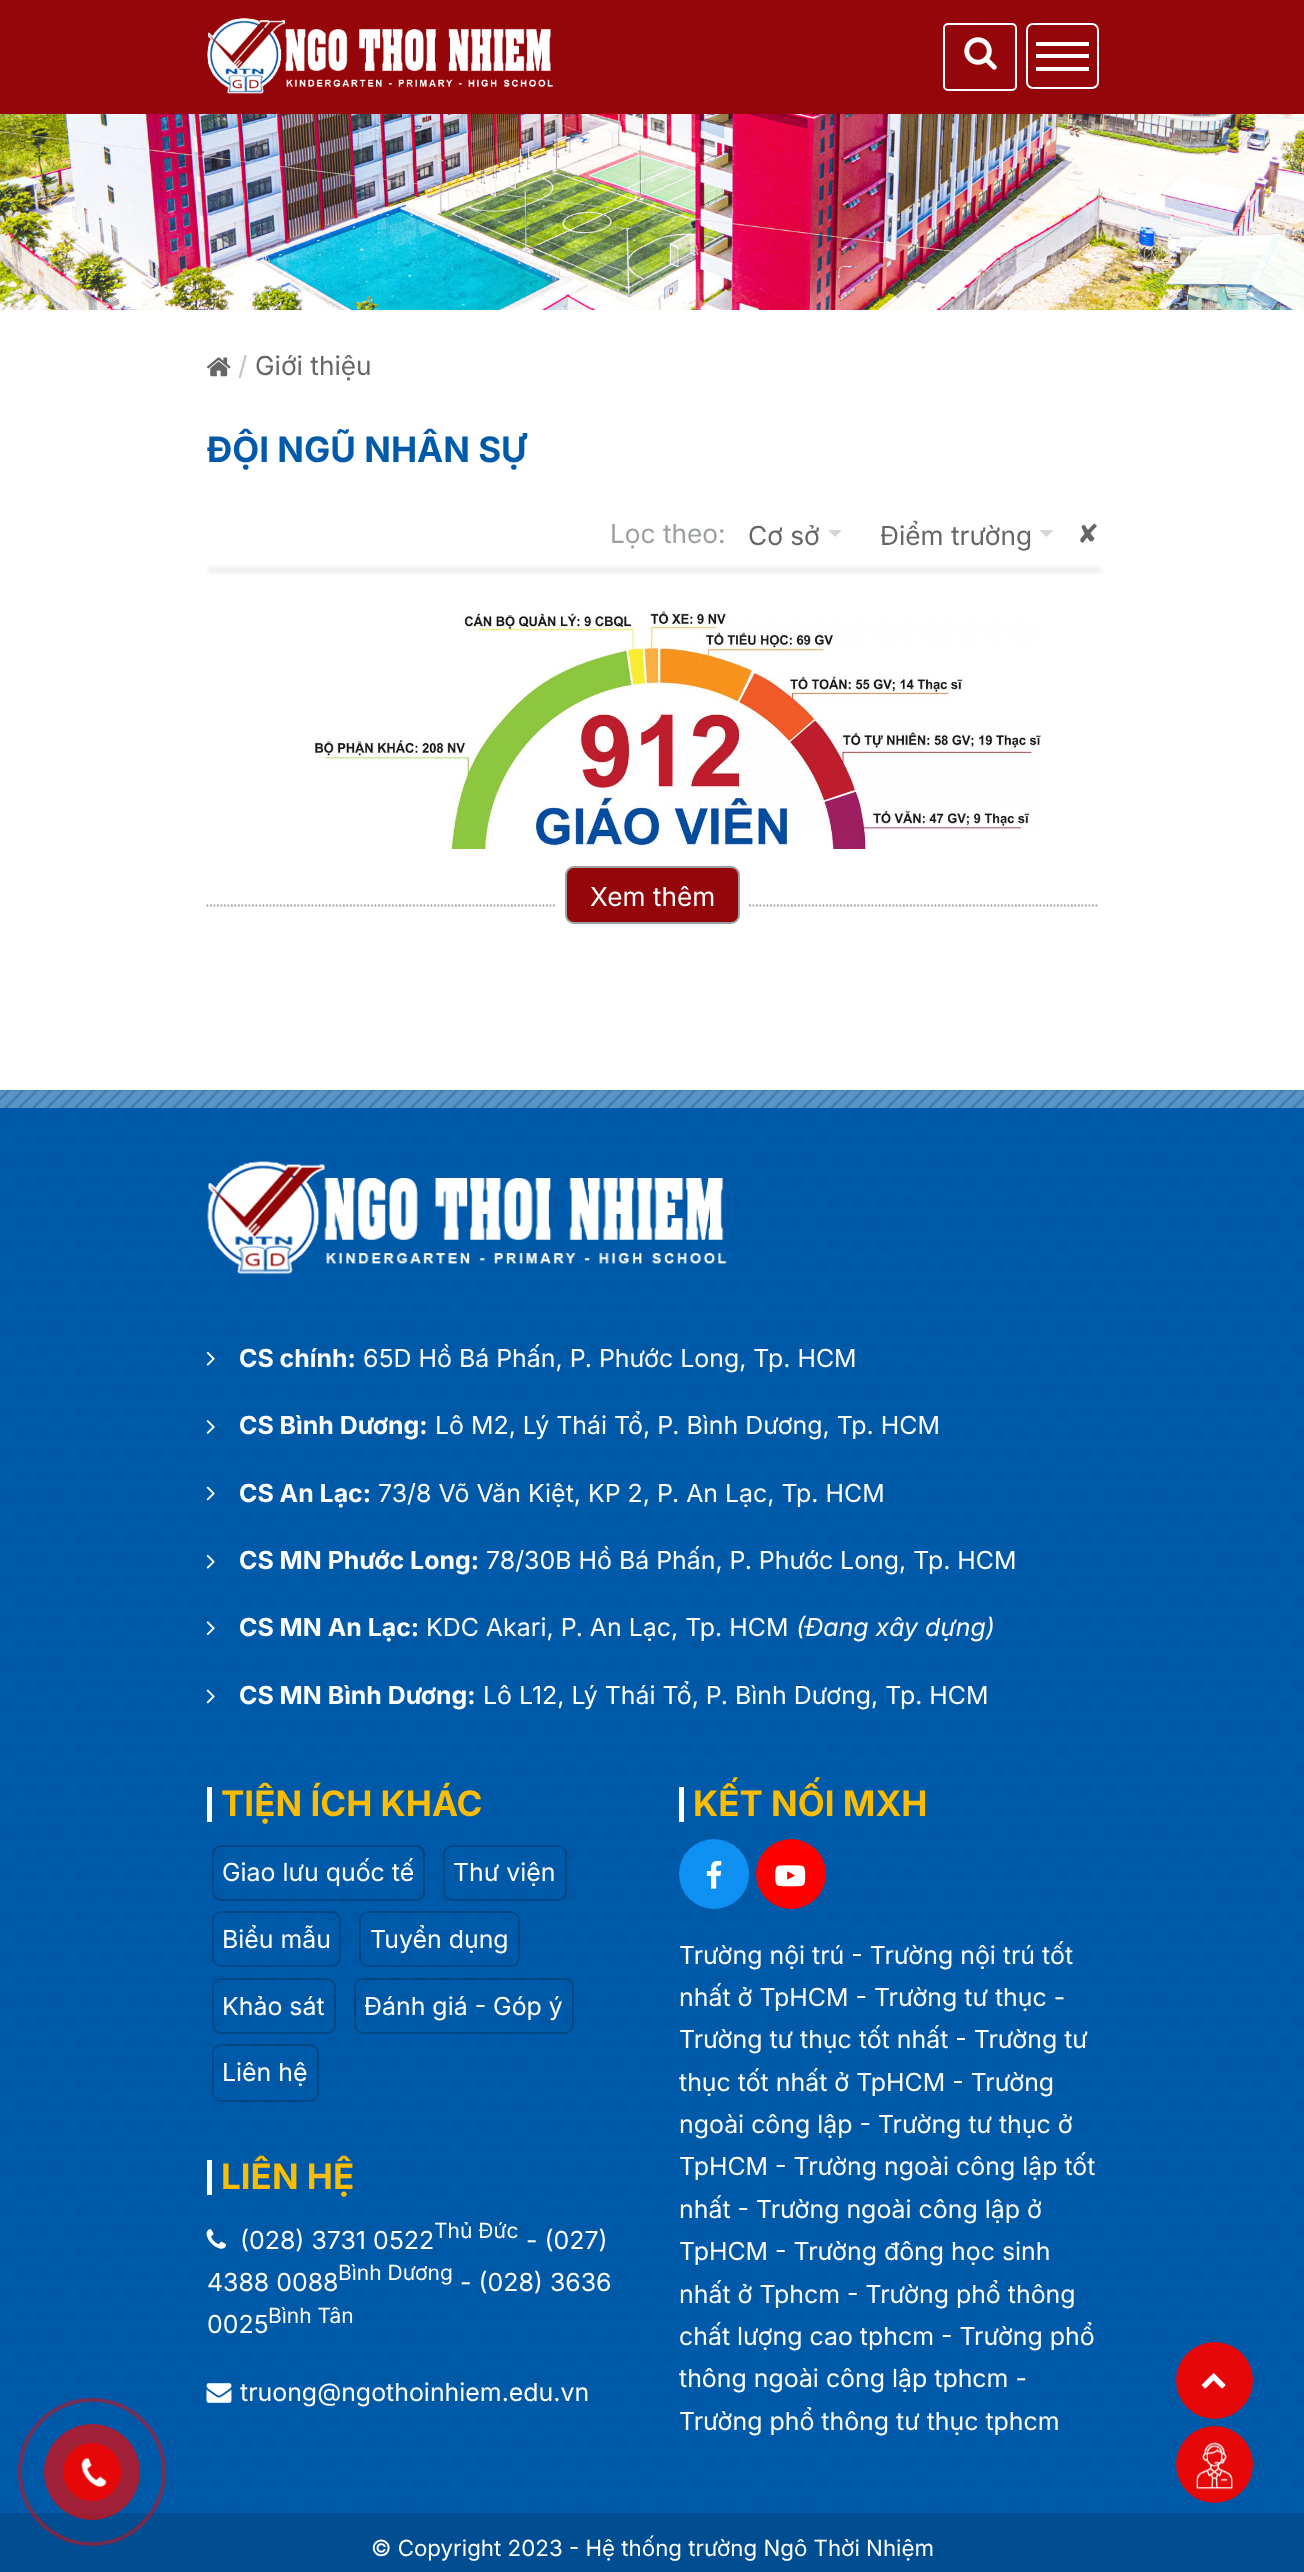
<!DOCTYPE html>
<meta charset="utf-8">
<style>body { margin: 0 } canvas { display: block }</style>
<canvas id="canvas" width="1304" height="2572"></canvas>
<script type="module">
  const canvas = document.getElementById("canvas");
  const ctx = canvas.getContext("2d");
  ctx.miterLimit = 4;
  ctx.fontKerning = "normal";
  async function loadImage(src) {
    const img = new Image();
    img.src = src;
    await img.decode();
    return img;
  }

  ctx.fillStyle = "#ffffff";
  ctx.fillRect(0, 0, 1304, 2572);
  ctx.fillStyle = "#940609";
  ctx.fillRect(0, 0, 1304, 114);
  ctx.drawImage(await loadImage("img1.png"), 207, 18, 346, 76);
  ctx.beginPath();
  ctx.roundRect(944, 24, 72, 66, 4);
  ctx.strokeStyle = "#ffffff";
  ctx.lineWidth = 2;
  ctx.stroke();
  ctx.drawImage(await loadImage("img2.png"), 964, 37, 33, 33);
  ctx.beginPath();
  ctx.roundRect(1027, 24, 71, 64, 6);
  ctx.stroke();
  ctx.fillStyle = "#ffffff";
  ctx.fillRect(1036, 42, 53, 4);
  ctx.fillRect(1036, 54, 53, 4);
  ctx.fillRect(1036, 67, 53, 4);
  ctx.drawImage(await loadImage("img3.png"), 0, 114, 1304, 196);
  ctx.drawImage(await loadImage("img4.png"), 207, 357, 24, 20);
  ctx.font = "26.25px Inter";
  ctx.fillStyle = "#c4c4c4";
  ctx.fillText("/", 238, 375);
  ctx.fillStyle = "#666666";
  ctx.fillText("Giới thiệu", 255, 375);
  ctx.font = "bold 35px Inter";
  ctx.fillStyle = "#005aaa";
  ctx.fillText("ĐỘI NGŨ NHÂN SỰ", 207, 462);
  ctx.font = "26.25px Inter";
  ctx.fillStyle = "#9ca0a1";
  ctx.fillText("Lọc theo:", 610, 543);
  ctx.fillStyle = "#666666";
  ctx.fillText("Cơ sở", 748, 545);
  ctx.fillStyle = "#d2d6d9";
  ctx.beginPath();
  ctx.moveTo(828, 530);
  ctx.lineTo(842, 530);
  ctx.lineTo(835, 537);
  ctx.closePath();
  ctx.fill();
  ctx.fillStyle = "#666666";
  ctx.fillText("Điểm trường", 880, 545);
  ctx.fillStyle = "#d2d6d9";
  ctx.beginPath();
  ctx.moveTo(1039.5, 530);
  ctx.lineTo(1053.5, 530);
  ctx.lineTo(1046.5, 537);
  ctx.closePath();
  ctx.fill();
  ctx.font = "26.25px DejaVu Sans";
  ctx.fillStyle = "#666666";
  ctx.fillText("✘", 1077, 543);
  ctx.fillStyle = "rgba(0, 0, 0, 0.2)";
  ctx.filter = "blur(2.5px)";
  ctx.beginPath();
  ctx.rect(208, 569, 893, 2);
  ctx.fill();
  ctx.filter = "none";
  ctx.drawImage(await loadImage("img5.png"), 314, 609, 727, 240);
  ctx.beginPath();
  ctx.moveTo(206.5, 905.5);
  ctx.lineTo(556.5, 905.5);
  ctx.strokeStyle = "#9ca0a1";
  ctx.lineWidth = 1.8;
  ctx.setLineDash([1.75, 1.75]);
  ctx.stroke();
  ctx.fillStyle = "#940609";
  ctx.beginPath();
  ctx.roundRect(566, 867, 173, 56, 8);
  ctx.fill();
  ctx.lineWidth = 2;
  ctx.setLineDash([]);
  ctx.stroke();
  ctx.font = "26.25px Inter";
  ctx.fillStyle = "#ffffff";
  ctx.fillText("Xem thêm", 590, 906);
  ctx.beginPath();
  ctx.moveTo(749, 905.5);
  ctx.lineTo(1099, 905.5);
  ctx.lineWidth = 1.8;
  ctx.setLineDash([1.75, 1.75]);
  ctx.stroke();
  ctx.fillStyle = "#337bbb";
  ctx.fillRect(0, 1090, 1304, 18);
  ctx.drawImage(await loadImage("img6.png"), 0, 1090, 1304, 18);
  ctx.fillStyle = "#005aaa";
  ctx.fillRect(0, 1108, 1304, 1405);
  ctx.drawImage(await loadImage("img7.png"), 1, 1112, 1303, 1399);
  ctx.drawImage(await loadImage("img8.png"), 207, 1161, 520, 113);
  ctx.drawImage(await loadImage("img9.png"), 206, 1351, 9, 15);
  ctx.font = "bold 24.9px Inter";
  ctx.fillStyle = "#ffffff";
  ctx.fillText("CS chính:", 239, 1367);
  ctx.font = "24.9px Inter";
  ctx.fillText("65D Hồ Bá Phấn, P. Phước Long, Tp. HCM", 363, 1367);
  ctx.drawImage(await loadImage("img10.png"), 206, 1420, 9, 14);
  ctx.font = "bold 24.9px Inter";
  ctx.fillText("CS Bình Dương:", 239, 1434);
  ctx.font = "24.9px Inter";
  ctx.fillText("Lô M2, Lý Thái Tổ, P. Bình Dương, Tp. HCM", 435, 1434);
  ctx.drawImage(await loadImage("img11.png"), 206, 1486, 9, 15);
  ctx.font = "bold 24.9px Inter";
  ctx.fillText("CS An Lạc:", 239, 1502);
  ctx.font = "24.9px Inter";
  ctx.fillText("73/8 Võ Văn Kiệt, KP 2, P. An Lạc, Tp. HCM", 378, 1502);
  ctx.drawImage(await loadImage("img12.png"), 206, 1554, 9, 15);
  ctx.font = "bold 24.9px Inter";
  ctx.fillText("CS MN Phước Long:", 239, 1569);
  ctx.font = "24.9px Inter";
  ctx.fillText("78/30B Hồ Bá Phấn, P. Phước Long, Tp. HCM", 486, 1569);
  ctx.drawImage(await loadImage("img13.png"), 206, 1621, 9, 15);
  ctx.font = "bold 24.9px Inter";
  ctx.fillText("CS MN An Lạc:", 239, 1636);
  ctx.font = "24.9px Inter";
  ctx.fillText("KDC Akari, P. An Lạc, Tp. HCM", 426, 1636);
  ctx.font = "italic 24.9px Inter";
  ctx.fillText("(Đang xây dựng)", 796, 1636);
  ctx.drawImage(await loadImage("img14.png"), 206, 1689, 9, 15);
  ctx.font = "bold 24.9px Inter";
  ctx.fillText("CS MN Bình Dương:", 239, 1704);
  ctx.font = "24.9px Inter";
  ctx.fillText("Lô L12, Lý Thái Tổ, P. Bình Dương, Tp. HCM", 483, 1704);
  ctx.fillRect(207, 1787, 5, 35);
  ctx.font = "bold 35px Inter";
  ctx.fillStyle = "#fbbc04";
  ctx.fillText("TIỆN ÍCH KHÁC", 221, 1816);
  ctx.beginPath();
  ctx.roundRect(213, 1846, 211, 54, 8);
  ctx.strokeStyle = "rgba(0, 0, 0, 0.2)";
  ctx.lineWidth = 2;
  ctx.setLineDash([]);
  ctx.stroke();
  ctx.font = "24.9px Inter";
  ctx.fillStyle = "#ffffff";
  ctx.fillText("Giao lưu quốc tế", 222, 1881);
  ctx.beginPath();
  ctx.roundRect(444, 1846, 122, 54, 8);
  ctx.stroke();
  ctx.fillText("Thư viện", 453, 1881);
  ctx.beginPath();
  ctx.roundRect(213, 1912, 127, 54, 8);
  ctx.stroke();
  ctx.fillText("Biểu mẫu", 222, 1948);
  ctx.beginPath();
  ctx.roundRect(360, 1912, 159, 54, 8);
  ctx.stroke();
  ctx.fillText("Tuyển dụng", 370, 1948);
  ctx.beginPath();
  ctx.roundRect(213, 1979, 122, 54, 8);
  ctx.stroke();
  ctx.fillText("Khảo sát", 222, 2015);
  ctx.beginPath();
  ctx.roundRect(355, 1979, 218, 54, 8);
  ctx.stroke();
  ctx.fillText("Đánh giá - Góp ý", 364, 2015);
  ctx.beginPath();
  ctx.roundRect(213, 2045, 105, 56, 8);
  ctx.stroke();
  ctx.fillText("Liên hệ", 222, 2081);
  ctx.fillRect(207, 2160, 5, 35);
  ctx.font = "bold 35px Inter";
  ctx.fillStyle = "#fbbc04";
  ctx.fillText("LIÊN HỆ", 221, 2189);
  ctx.drawImage(await loadImage("img15.png"), 206, 2229, 21, 20);
  ctx.font = "24.9px Inter";
  ctx.fillStyle = "#ffffff";
  ctx.fillText("(028) 3731 0522", 240, 2249);
  ctx.font = "21px Inter";
  ctx.fillText("Thủ Đức", 434, 2238);
  ctx.font = "24.9px Inter";
  ctx.fillText("- (027)", 526, 2249);
  ctx.fillText("4388 0088", 207, 2291);
  ctx.font = "21px Inter";
  ctx.fillText("Bình Dương", 338, 2280);
  ctx.font = "24.9px Inter";
  ctx.fillText("- (028) 3636", 460, 2291);
  ctx.fillText("0025", 207, 2333);
  ctx.font = "21px Inter";
  ctx.fillText("Bình Tân", 268, 2323);
  ctx.drawImage(await loadImage("img16.png"), 206, 2383, 26, 20);
  ctx.font = "24.9px Inter";
  ctx.fillText("truong@ngothoinhiem.edu.vn", 240, 2401);
  ctx.fillRect(679, 1787, 5, 35);
  ctx.font = "bold 35px Inter";
  ctx.fillStyle = "#fbbc04";
  ctx.fillText("KẾT NỐI MXH", 693, 1816);
  ctx.fillStyle = "#0f91f3";
  ctx.beginPath();
  ctx.arc(714, 1874, 35, 0, Math.PI * 2);
  ctx.fill();
  ctx.drawImage(await loadImage("img17.png"), 706, 1860, 16, 29);
  ctx.fillStyle = "#ff0000";
  ctx.beginPath();
  ctx.arc(791, 1874, 35, 0, Math.PI * 2);
  ctx.fill();
  ctx.drawImage(await loadImage("img18.png"), 775, 1865, 31, 22);
  ctx.font = "24.9px Inter";
  ctx.fillStyle = "#ffffff";
  ctx.fillText("Trường nội trú - Trường nội trú tốt", 679, 1964);
  ctx.fillText("nhất ở TpHCM - Trường tư thục -", 679, 2006);
  ctx.fillText("Trường tư thục tốt nhất - Trường tư", 679, 2048);
  ctx.fillText("thục tốt nhất ở TpHCM - Trường", 679, 2091);
  ctx.fillText("ngoài công lập - Trường tư thục ở", 679, 2133);
  ctx.fillText("TpHCM - Trường ngoài công lập tốt", 679, 2175);
  ctx.fillText("nhất - Trường ngoài công lập ở", 679, 2218);
  ctx.fillText("TpHCM - Trường đông học sinh", 679, 2260);
  ctx.fillText("nhất ở Tphcm - Trường phổ thông", 679, 2303);
  ctx.fillText("chất lượng cao tphcm - Trường phổ", 679, 2345);
  ctx.fillText("thông ngoài công lập tphcm -", 679, 2387);
  ctx.fillText("Trường phổ thông tư thục tphcm", 679, 2430);
  ctx.fillStyle = "#004d91";
  ctx.fillRect(0, 2513, 1304, 59);
  ctx.font = "22.3px Inter";
  ctx.fillStyle = "#ffffff";
  ctx.fillText("© Copyright 2023 - Hệ thống trường Ngô Thời Nhiệm", 371, 2556);
  ctx.fillStyle = "#e60808";
  ctx.beginPath();
  ctx.arc(1214.5, 2380.5, 38.5, 0, Math.PI * 2);
  ctx.fill();
  ctx.drawImage(await loadImage("img19.png"), 1201, 2373, 25, 16);
  ctx.beginPath();
  ctx.arc(92, 2472, 72, 0, Math.PI * 2);
  ctx.strokeStyle = "rgba(230, 8, 8, 0.5)";
  ctx.lineWidth = 4;
  ctx.stroke();
  ctx.fillStyle = "rgba(230, 8, 8, 0.7)";
  ctx.beginPath();
  ctx.arc(92, 2472, 48, 0, Math.PI * 2);
  ctx.fill();
  ctx.fillStyle = "#e60808";
  ctx.beginPath();
  ctx.arc(92, 2472, 29, 0, Math.PI * 2);
  ctx.fill();
  ctx.drawImage(await loadImage("img20.png"), 81, 2457, 26, 30);
  ctx.beginPath();
  ctx.arc(1214.5, 2464.5, 38.5, 0, Math.PI * 2);
  ctx.fill();
  ctx.drawImage(await loadImage("img21.png"), 1196, 2442, 37, 48);
</script>
